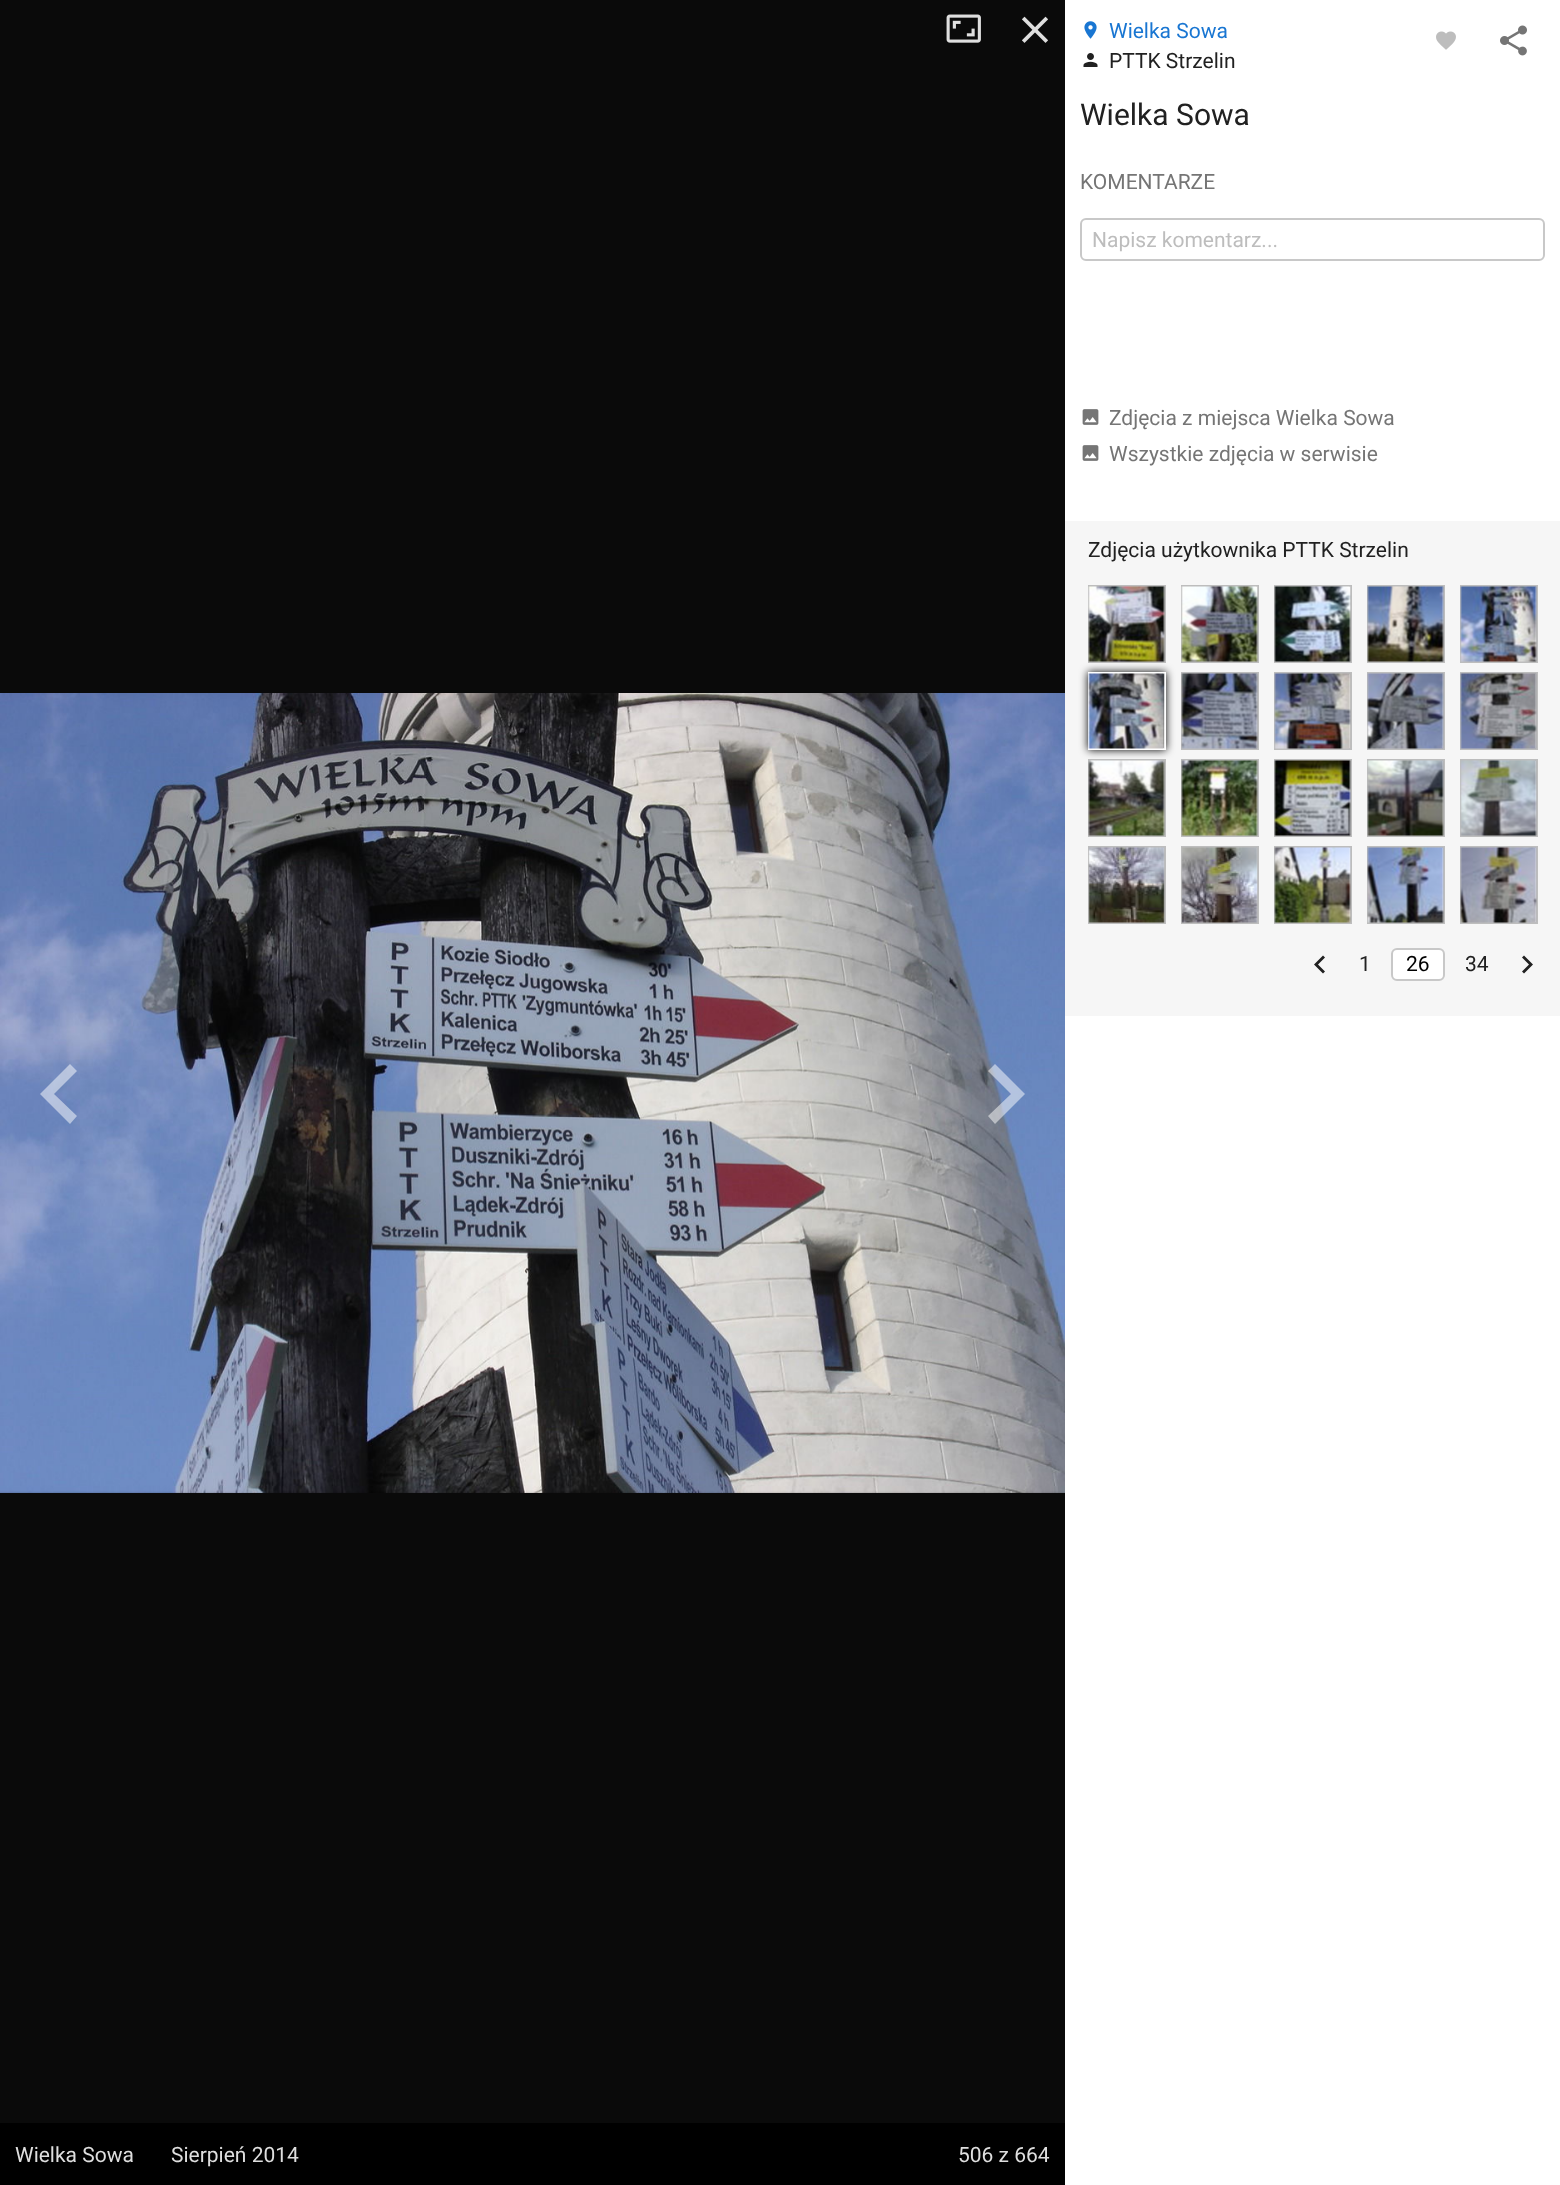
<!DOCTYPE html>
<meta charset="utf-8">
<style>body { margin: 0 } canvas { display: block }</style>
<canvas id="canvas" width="1560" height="2185"></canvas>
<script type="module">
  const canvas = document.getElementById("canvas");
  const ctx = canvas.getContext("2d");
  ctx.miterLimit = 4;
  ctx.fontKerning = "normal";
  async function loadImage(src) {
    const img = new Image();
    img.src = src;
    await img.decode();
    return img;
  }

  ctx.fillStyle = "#0a0a0a";
  ctx.fillRect(0, 0, 1560, 2185);
  ctx.fillStyle = "#ffffff";
  ctx.fillRect(1065, 0, 495, 2185);
  ctx.drawImage(await loadImage("img1.png"), 1084, 21, 13, 18);
  ctx.font = "21px Roboto";
  ctx.fillStyle = "#1976d2";
  ctx.fillText("Wielka Sowa", 1109, 38);
  ctx.drawImage(await loadImage("img2.png"), 1083, 53, 15, 14);
  ctx.fillStyle = "#212121";
  ctx.fillText("PTTK Strzelin", 1109, 68);
  ctx.drawImage(await loadImage("img3.png"), 1436, 31, 20, 19);
  ctx.drawImage(await loadImage("img4.png"), 1500, 25, 27, 31);
  ctx.font = "30px Roboto";
  ctx.fillText("Wielka Sowa", 1080, 125);
  ctx.font = "21px Roboto";
  ctx.fillStyle = "#757575";
  ctx.fillText("KOMENTARZE", 1080, 189);
  ctx.beginPath();
  ctx.roundRect(1081, 219, 463, 41, 5);
  ctx.strokeStyle = "#c8c8c8";
  ctx.lineWidth = 2;
  ctx.stroke();
  ctx.fillStyle = "#bdbdbd";
  ctx.fillText("Napisz komentarz...", 1092, 247);
  ctx.drawImage(await loadImage("img5.png"), 1082, 409, 17, 16);
  ctx.fillStyle = "#757575";
  ctx.fillText("Zdjęcia z miejsca Wielka Sowa", 1109, 425);
  ctx.drawImage(await loadImage("img5.png"), 1082, 445, 17, 16);
  ctx.fillText("Wszystkie zdjęcia w serwisie", 1109, 461);
  ctx.fillStyle = "#f6f6f6";
  ctx.fillRect(1065, 521, 495, 495);
  ctx.fillStyle = "#212121";
  ctx.fillText("Zdjęcia użytkownika PTTK Strzelin", 1088, 557);
  ctx.strokeStyle = "#bdbdbd";
  ctx.strokeRect(1089, 586, 76, 76);
  ctx.drawImage(await loadImage("img6.png"), 1088, 586, 77, 76);
  ctx.strokeRect(1182, 586, 76, 76);
  ctx.drawImage(await loadImage("img7.png"), 1181, 586, 77, 76);
  ctx.strokeRect(1275, 586, 76, 76);
  ctx.drawImage(await loadImage("img8.png"), 1274, 586, 77, 76);
  ctx.strokeRect(1368, 586, 76, 76);
  ctx.drawImage(await loadImage("img9.png"), 1367, 586, 77, 76);
  ctx.strokeRect(1461, 586, 76, 76);
  ctx.drawImage(await loadImage("img10.png"), 1460, 586, 77, 76);
  ctx.fillStyle = "#000000";
  ctx.filter = "blur(4px)";
  ctx.beginPath();
  ctx.rect(1088, 672, 78, 78);
  ctx.fill();
  ctx.filter = "none";
  ctx.strokeStyle = "#ffffff";
  ctx.strokeRect(1089, 673, 76, 76);
  ctx.drawImage(await loadImage("img11.png"), 1088, 673, 77, 76);
  ctx.strokeStyle = "#bdbdbd";
  ctx.strokeRect(1182, 673, 76, 76);
  ctx.drawImage(await loadImage("img12.png"), 1181, 673, 77, 76);
  ctx.strokeRect(1275, 673, 76, 76);
  ctx.drawImage(await loadImage("img13.png"), 1274, 673, 77, 76);
  ctx.strokeRect(1368, 673, 76, 76);
  ctx.drawImage(await loadImage("img14.png"), 1367, 673, 77, 76);
  ctx.strokeRect(1461, 673, 76, 76);
  ctx.drawImage(await loadImage("img15.png"), 1460, 673, 77, 76);
  ctx.strokeRect(1089, 760, 76, 76);
  ctx.drawImage(await loadImage("img16.png"), 1088, 760, 77, 76);
  ctx.strokeRect(1182, 760, 76, 76);
  ctx.drawImage(await loadImage("img17.png"), 1181, 760, 77, 76);
  ctx.strokeRect(1275, 760, 76, 76);
  ctx.drawImage(await loadImage("img18.png"), 1274, 760, 77, 76);
  ctx.strokeRect(1368, 760, 76, 76);
  ctx.drawImage(await loadImage("img19.png"), 1367, 760, 77, 76);
  ctx.strokeRect(1461, 760, 76, 76);
  ctx.drawImage(await loadImage("img20.png"), 1460, 760, 77, 76);
  ctx.strokeRect(1089, 847, 76, 76);
  ctx.drawImage(await loadImage("img21.png"), 1088, 847, 77, 76);
  ctx.strokeRect(1182, 847, 76, 76);
  ctx.drawImage(await loadImage("img22.png"), 1181, 847, 77, 76);
  ctx.strokeRect(1275, 847, 76, 76);
  ctx.drawImage(await loadImage("img23.png"), 1274, 847, 77, 76);
  ctx.strokeRect(1368, 847, 76, 76);
  ctx.drawImage(await loadImage("img24.png"), 1367, 847, 77, 76);
  ctx.strokeRect(1461, 847, 76, 76);
  ctx.drawImage(await loadImage("img25.png"), 1460, 847, 77, 76);
  ctx.fillStyle = "#212121";
  ctx.beginPath();
  ctx.moveTo(1325, 971.5);
  ctx.lineTo(1323, 973.5);
  ctx.lineTo(1314, 964.5);
  ctx.lineTo(1323, 955.5);
  ctx.lineTo(1325, 957.5);
  ctx.lineTo(1318, 964.5);
  ctx.closePath();
  ctx.fill();
  ctx.fillText("1", 1359, 971);
  ctx.fillStyle = "#ffffff";
  ctx.beginPath();
  ctx.roundRect(1392, 949, 52, 31, 5);
  ctx.fill();
  ctx.strokeStyle = "#c8c8c8";
  ctx.stroke();
  ctx.fillStyle = "#000000";
  ctx.fillText("26", 1406, 971);
  ctx.fillStyle = "#212121";
  ctx.fillText("34", 1465, 971);
  ctx.beginPath();
  ctx.moveTo(1522, 971.5);
  ctx.lineTo(1529, 964.5);
  ctx.lineTo(1522, 957.5);
  ctx.lineTo(1524, 955.5);
  ctx.lineTo(1533, 964.5);
  ctx.lineTo(1524, 973.5);
  ctx.closePath();
  ctx.fill();
  ctx.drawImage(await loadImage("img26.png"), 946, 14, 35, 29);
  ctx.drawImage(await loadImage("img27.png"), 1022, 16, 26, 27);
  ctx.drawImage(await loadImage("img28.png"), 0, 693, 1065, 800);
  ctx.fillStyle = "rgba(255, 255, 255, 0.5)";
  ctx.beginPath();
  ctx.moveTo(77, 1071);
  ctx.lineTo(70, 1064);
  ctx.lineTo(40, 1094);
  ctx.lineTo(70, 1124);
  ctx.lineTo(77, 1116);
  ctx.lineTo(54, 1094);
  ctx.closePath();
  ctx.fill();
  ctx.beginPath();
  ctx.moveTo(995, 1064);
  ctx.lineTo(988, 1071);
  ctx.lineTo(1011, 1094);
  ctx.lineTo(988, 1116);
  ctx.lineTo(995, 1124);
  ctx.lineTo(1025, 1094);
  ctx.closePath();
  ctx.fill();
  ctx.fillStyle = "#000000";
  ctx.fillRect(0, 2123, 1065, 62);
  ctx.fillStyle = "#dedede";
  ctx.fillText("Wielka Sowa", 15, 2162);
  ctx.fillText("Sierpień 2014", 171, 2162);
  ctx.fillText("506 z 664", 958, 2162);
</script>
